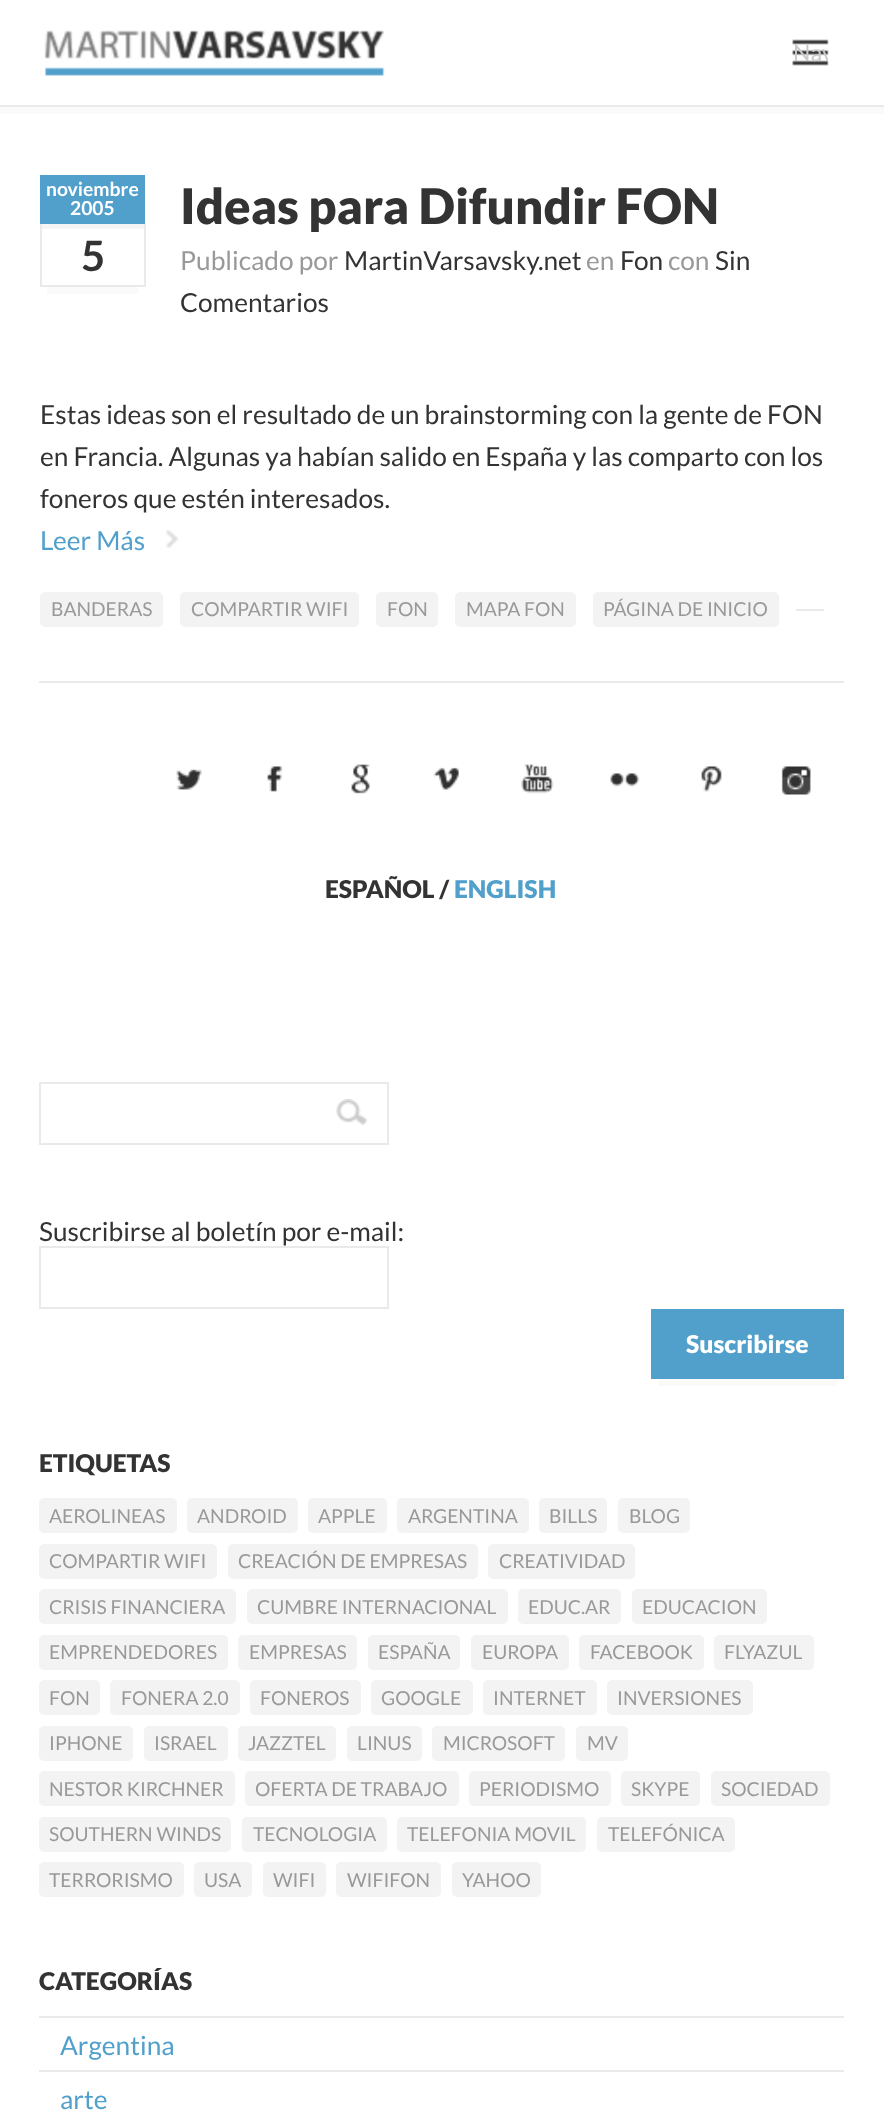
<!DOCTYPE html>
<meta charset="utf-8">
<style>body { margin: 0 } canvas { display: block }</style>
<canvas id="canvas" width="884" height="2110"></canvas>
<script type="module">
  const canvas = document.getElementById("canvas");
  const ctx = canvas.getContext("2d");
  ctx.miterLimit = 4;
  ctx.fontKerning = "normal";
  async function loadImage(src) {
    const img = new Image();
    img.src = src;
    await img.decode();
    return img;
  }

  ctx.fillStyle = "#ffffff";
  ctx.fillRect(0, 0, 884, 2110);
  ctx.fillStyle = "#fafafa";
  ctx.beginPath();
  ctx.moveTo(0, 107);
  ctx.lineTo(0, 114);
  ctx.lineTo(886, 114);
  ctx.lineTo(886, 7);
  ctx.lineTo(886, 107);
  ctx.closePath();
  ctx.fill();
  ctx.fillStyle = "#eaeaea";
  ctx.fillRect(0, 105, 884, 2);
  ctx.drawImage(await loadImage("img1.png"), 44, 30, 341, 46);
  ctx.drawImage(await loadImage("img2.png"), 792, 39, 37, 27);
  ctx.save();
  ctx.beginPath();
  ctx.rect(793, 39, 35, 28);
  ctx.clip();
  ctx.font = "23px Lato";
  ctx.fillStyle = "#cacaca";
  ctx.fillText("Nav", 793, 61);
  ctx.restore();
  ctx.fillRect(796, 609, 28, 2);
  ctx.fillStyle = "#519fcb";
  ctx.fillRect(40, 175, 105, 49);
  ctx.font = "bold 19.25px Lato";
  ctx.fillStyle = "#ffffff";
  ctx.fillText("noviembre", 46, 196);
  ctx.fillText("2005", 70, 215);
  ctx.fillStyle = "#fafafa";
  ctx.fillRect(47, 287, 91, 7);
  ctx.fillStyle = "#f5f5f5";
  ctx.fillRect(42, 224, 102, 5);
  ctx.fillStyle = "#eaeaea";
  ctx.fillRect(144, 224, 2, 63);
  ctx.fillRect(40, 285, 105, 2);
  ctx.fillRect(40, 224, 2, 63);
  ctx.font = "bold 42px Lato";
  ctx.fillStyle = "#333333";
  ctx.fillText("5", 81, 271);
  ctx.font = "900 49px Lato";
  ctx.fillText("Ideas para Difundir FON", 180, 224);
  ctx.font = "26.25px Lato";
  ctx.fillStyle = "#999999";
  ctx.fillText("Publicado por", 180, 270);
  ctx.fillStyle = "#333333";
  ctx.fillText("MartinVarsavsky.net", 344, 270);
  ctx.fillStyle = "#999999";
  ctx.fillText("en", 586, 270);
  ctx.fillStyle = "#333333";
  ctx.fillText("Fon", 620, 270);
  ctx.fillStyle = "#999999";
  ctx.fillText("con", 668, 270);
  ctx.fillStyle = "#333333";
  ctx.fillText("Sin", 715, 270);
  ctx.fillText("Comentarios", 180, 312);
  ctx.fillText("Estas ideas son el resultado de un brainstorming con la gente de FON", 40, 424);
  ctx.fillText("en Francia. Algunas ya habían salido en España y las comparto con los", 40, 466);
  ctx.fillText("foneros que estén interesados.", 40, 508);
  ctx.fillStyle = "#519fcb";
  ctx.fillText("Leer Más", 40, 550);
  ctx.drawImage(await loadImage("img3.png"), 166, 530, 13, 18);
  ctx.fillStyle = "#f3f3f3";
  ctx.beginPath();
  ctx.roundRect(40, 592, 123, 35, 5);
  ctx.fill();
  ctx.font = "19.25px Lato";
  ctx.fillStyle = "#999999";
  ctx.fillText("BANDERAS", 51, 616);
  ctx.fillStyle = "#f3f3f3";
  ctx.beginPath();
  ctx.roundRect(180, 592, 179, 35, 5);
  ctx.fill();
  ctx.fillStyle = "#999999";
  ctx.fillText("COMPARTIR WIFI", 191, 616);
  ctx.fillStyle = "#f3f3f3";
  ctx.beginPath();
  ctx.roundRect(376, 592, 62, 35, 5);
  ctx.fill();
  ctx.fillStyle = "#999999";
  ctx.fillText("FON", 387, 616);
  ctx.fillStyle = "#f3f3f3";
  ctx.beginPath();
  ctx.roundRect(455, 592, 121, 35, 5);
  ctx.fill();
  ctx.fillStyle = "#999999";
  ctx.fillText("MAPA FON", 466, 616);
  ctx.fillStyle = "#f3f3f3";
  ctx.beginPath();
  ctx.roundRect(593, 592, 186, 35, 5);
  ctx.fill();
  ctx.fillStyle = "#999999";
  ctx.fillText("PÁGINA DE INICIO", 603, 616);
  ctx.fillStyle = "#eaeaea";
  ctx.fillRect(39, 681, 805, 2);
  ctx.drawImage(await loadImage("img4.png"), 176, 769, 26, 21);
  ctx.drawImage(await loadImage("img5.png"), 267, 766, 16, 26);
  ctx.drawImage(await loadImage("img6.png"), 351, 764, 19, 30);
  ctx.drawImage(await loadImage("img7.png"), 433, 767, 26, 23);
  ctx.drawImage(await loadImage("img8.png"), 521, 764, 33, 30);
  ctx.drawImage(await loadImage("img9.png"), 610, 773, 30, 14);
  ctx.drawImage(await loadImage("img10.png"), 701, 766, 21, 26);
  ctx.drawImage(await loadImage("img11.png"), 781, 766, 30, 29);
  ctx.font = "900 24.5px Lato";
  ctx.fillStyle = "#333333";
  ctx.fillText("ESPAÑOL /", 325, 898);
  ctx.fillStyle = "#519fcb";
  ctx.fillText("ENGLISH", 454, 898);
  ctx.strokeStyle = "#eaeaea";
  ctx.lineWidth = 2;
  ctx.strokeRect(40, 1083, 348, 61);
  ctx.drawImage(await loadImage("img12.png"), 336, 1099, 32, 27);
  ctx.font = "26.25px Lato";
  ctx.fillStyle = "#333333";
  ctx.fillText("Suscribirse al boletín por e-mail:", 39, 1241);
  ctx.strokeRect(40, 1247, 348, 61);
  ctx.fillStyle = "#519fcb";
  ctx.fillRect(651, 1309, 193, 70);
  ctx.font = "900 24.5px Lato";
  ctx.fillStyle = "#ffffff";
  ctx.fillText("Suscribirse", 686, 1353);
  ctx.fillStyle = "#fafafa";
  ctx.fillRect(658, 1379, 179, 7);
  ctx.fillStyle = "#333333";
  ctx.fillText("ETIQUETAS", 39, 1472);
  ctx.fillStyle = "#f3f3f3";
  ctx.beginPath();
  ctx.roundRect(39, 1498, 138, 35, 5);
  ctx.fill();
  ctx.font = "19.25px Lato";
  ctx.fillStyle = "#999999";
  ctx.fillText("AEROLINEAS", 49, 1523);
  ctx.fillStyle = "#f3f3f3";
  ctx.beginPath();
  ctx.roundRect(187, 1498, 111, 35, 5);
  ctx.fill();
  ctx.fillStyle = "#999999";
  ctx.fillText("ANDROID", 197, 1523);
  ctx.fillStyle = "#f3f3f3";
  ctx.beginPath();
  ctx.roundRect(308, 1498, 79, 35, 5);
  ctx.fill();
  ctx.fillStyle = "#999999";
  ctx.fillText("APPLE", 318, 1523);
  ctx.fillStyle = "#f3f3f3";
  ctx.beginPath();
  ctx.roundRect(397, 1498, 132, 35, 5);
  ctx.fill();
  ctx.fillStyle = "#999999";
  ctx.fillText("ARGENTINA", 408, 1523);
  ctx.fillStyle = "#f3f3f3";
  ctx.beginPath();
  ctx.roundRect(539, 1498, 68, 35, 5);
  ctx.fill();
  ctx.fillStyle = "#999999";
  ctx.fillText("BILLS", 549, 1523);
  ctx.fillStyle = "#f3f3f3";
  ctx.beginPath();
  ctx.roundRect(618, 1498, 72, 35, 5);
  ctx.fill();
  ctx.fillStyle = "#999999";
  ctx.fillText("BLOG", 629, 1523);
  ctx.fillStyle = "#f3f3f3";
  ctx.beginPath();
  ctx.roundRect(39, 1544, 178, 35, 5);
  ctx.fill();
  ctx.fillStyle = "#999999";
  ctx.fillText("COMPARTIR WIFI", 49, 1568);
  ctx.fillStyle = "#f3f3f3";
  ctx.beginPath();
  ctx.roundRect(228, 1544, 250, 35, 5);
  ctx.fill();
  ctx.fillStyle = "#999999";
  ctx.fillText("CREACIÓN DE EMPRESAS", 238, 1568);
  ctx.fillStyle = "#f3f3f3";
  ctx.beginPath();
  ctx.roundRect(488, 1544, 147, 35, 5);
  ctx.fill();
  ctx.fillStyle = "#999999";
  ctx.fillText("CREATIVIDAD", 499, 1568);
  ctx.fillStyle = "#f3f3f3";
  ctx.beginPath();
  ctx.roundRect(39, 1589, 197, 35, 5);
  ctx.fill();
  ctx.fillStyle = "#999999";
  ctx.fillText("CRISIS FINANCIERA", 49, 1614);
  ctx.fillStyle = "#f3f3f3";
  ctx.beginPath();
  ctx.roundRect(247, 1589, 261, 35, 5);
  ctx.fill();
  ctx.fillStyle = "#999999";
  ctx.fillText("CUMBRE INTERNACIONAL", 257, 1614);
  ctx.fillStyle = "#f3f3f3";
  ctx.beginPath();
  ctx.roundRect(518, 1589, 103, 35, 5);
  ctx.fill();
  ctx.fillStyle = "#999999";
  ctx.fillText("EDUC.AR", 528, 1614);
  ctx.fillStyle = "#f3f3f3";
  ctx.beginPath();
  ctx.roundRect(632, 1589, 135, 35, 5);
  ctx.fill();
  ctx.fillStyle = "#999999";
  ctx.fillText("EDUCACION", 642, 1614);
  ctx.fillStyle = "#f3f3f3";
  ctx.beginPath();
  ctx.roundRect(39, 1635, 189, 35, 5);
  ctx.fill();
  ctx.fillStyle = "#999999";
  ctx.fillText("EMPRENDEDORES", 49, 1659);
  ctx.fillStyle = "#f3f3f3";
  ctx.beginPath();
  ctx.roundRect(238, 1635, 119, 35, 5);
  ctx.fill();
  ctx.fillStyle = "#999999";
  ctx.fillText("EMPRESAS", 249, 1659);
  ctx.fillStyle = "#f3f3f3";
  ctx.beginPath();
  ctx.roundRect(368, 1635, 92, 35, 5);
  ctx.fill();
  ctx.fillStyle = "#999999";
  ctx.fillText("ESPAÑA", 378, 1659);
  ctx.fillStyle = "#f3f3f3";
  ctx.beginPath();
  ctx.roundRect(471, 1635, 98, 35, 5);
  ctx.fill();
  ctx.fillStyle = "#999999";
  ctx.fillText("EUROPA", 482, 1659);
  ctx.fillStyle = "#f3f3f3";
  ctx.beginPath();
  ctx.roundRect(579, 1635, 125, 35, 5);
  ctx.fill();
  ctx.fillStyle = "#999999";
  ctx.fillText("FACEBOOK", 590, 1659);
  ctx.fillStyle = "#f3f3f3";
  ctx.beginPath();
  ctx.roundRect(714, 1635, 100, 35, 5);
  ctx.fill();
  ctx.fillStyle = "#999999";
  ctx.fillText("FLYAZUL", 724, 1659);
  ctx.fillStyle = "#f3f3f3";
  ctx.beginPath();
  ctx.roundRect(39, 1680, 61, 35, 5);
  ctx.fill();
  ctx.fillStyle = "#999999";
  ctx.fillText("FON", 49, 1705);
  ctx.fillStyle = "#f3f3f3";
  ctx.beginPath();
  ctx.roundRect(110, 1680, 130, 35, 5);
  ctx.fill();
  ctx.fillStyle = "#999999";
  ctx.fillText("FONERA 2.0", 121, 1705);
  ctx.fillStyle = "#f3f3f3";
  ctx.beginPath();
  ctx.roundRect(250, 1680, 111, 35, 5);
  ctx.fill();
  ctx.fillStyle = "#999999";
  ctx.fillText("FONEROS", 260, 1705);
  ctx.fillStyle = "#f3f3f3";
  ctx.beginPath();
  ctx.roundRect(371, 1680, 102, 35, 5);
  ctx.fill();
  ctx.fillStyle = "#999999";
  ctx.fillText("GOOGLE", 381, 1705);
  ctx.fillStyle = "#f3f3f3";
  ctx.beginPath();
  ctx.roundRect(483, 1680, 114, 35, 5);
  ctx.fill();
  ctx.fillStyle = "#999999";
  ctx.fillText("INTERNET", 493, 1705);
  ctx.fillStyle = "#f3f3f3";
  ctx.beginPath();
  ctx.roundRect(607, 1680, 146, 35, 5);
  ctx.fill();
  ctx.fillStyle = "#999999";
  ctx.fillText("INVERSIONES", 617, 1705);
  ctx.fillStyle = "#f3f3f3";
  ctx.beginPath();
  ctx.roundRect(39, 1726, 94, 35, 5);
  ctx.fill();
  ctx.fillStyle = "#999999";
  ctx.fillText("IPHONE", 49, 1750);
  ctx.fillStyle = "#f3f3f3";
  ctx.beginPath();
  ctx.roundRect(144, 1726, 84, 35, 5);
  ctx.fill();
  ctx.fillStyle = "#999999";
  ctx.fillText("ISRAEL", 154, 1750);
  ctx.fillStyle = "#f3f3f3";
  ctx.beginPath();
  ctx.roundRect(238, 1726, 98, 35, 5);
  ctx.fill();
  ctx.fillStyle = "#999999";
  ctx.fillText("JAZZTEL", 248, 1750);
  ctx.fillStyle = "#f3f3f3";
  ctx.beginPath();
  ctx.roundRect(347, 1726, 75, 35, 5);
  ctx.fill();
  ctx.fillStyle = "#999999";
  ctx.fillText("LINUS", 357, 1750);
  ctx.fillStyle = "#f3f3f3";
  ctx.beginPath();
  ctx.roundRect(432, 1726, 133, 35, 5);
  ctx.fill();
  ctx.fillStyle = "#999999";
  ctx.fillText("MICROSOFT", 443, 1750);
  ctx.fillStyle = "#f3f3f3";
  ctx.beginPath();
  ctx.roundRect(576, 1726, 52, 35, 5);
  ctx.fill();
  ctx.fillStyle = "#999999";
  ctx.fillText("MV", 587, 1750);
  ctx.fillStyle = "#f3f3f3";
  ctx.beginPath();
  ctx.roundRect(39, 1771, 196, 35, 5);
  ctx.fill();
  ctx.fillStyle = "#999999";
  ctx.fillText("NESTOR KIRCHNER", 49, 1796);
  ctx.fillStyle = "#f3f3f3";
  ctx.beginPath();
  ctx.roundRect(245, 1771, 214, 35, 5);
  ctx.fill();
  ctx.fillStyle = "#999999";
  ctx.fillText("OFERTA DE TRABAJO", 255, 1796);
  ctx.fillStyle = "#f3f3f3";
  ctx.beginPath();
  ctx.roundRect(469, 1771, 142, 35, 5);
  ctx.fill();
  ctx.fillStyle = "#999999";
  ctx.fillText("PERIODISMO", 479, 1796);
  ctx.fillStyle = "#f3f3f3";
  ctx.beginPath();
  ctx.roundRect(621, 1771, 79, 35, 5);
  ctx.fill();
  ctx.fillStyle = "#999999";
  ctx.fillText("SKYPE", 631, 1796);
  ctx.fillStyle = "#f3f3f3";
  ctx.beginPath();
  ctx.roundRect(711, 1771, 119, 35, 5);
  ctx.fill();
  ctx.fillStyle = "#999999";
  ctx.fillText("SOCIEDAD", 721, 1796);
  ctx.fillStyle = "#f3f3f3";
  ctx.beginPath();
  ctx.roundRect(39, 1817, 192, 35, 5);
  ctx.fill();
  ctx.fillStyle = "#999999";
  ctx.fillText("SOUTHERN WINDS", 49, 1841);
  ctx.fillStyle = "#f3f3f3";
  ctx.beginPath();
  ctx.roundRect(242, 1817, 145, 35, 5);
  ctx.fill();
  ctx.fillStyle = "#999999";
  ctx.fillText("TECNOLOGIA", 253, 1841);
  ctx.fillStyle = "#f3f3f3";
  ctx.beginPath();
  ctx.roundRect(397, 1817, 189, 35, 5);
  ctx.fill();
  ctx.fillStyle = "#999999";
  ctx.fillText("TELEFONIA MOVIL", 407, 1841);
  ctx.fillStyle = "#f3f3f3";
  ctx.beginPath();
  ctx.roundRect(597, 1817, 138, 35, 5);
  ctx.fill();
  ctx.fillStyle = "#999999";
  ctx.fillText("TELEFÓNICA", 608, 1841);
  ctx.fillStyle = "#f3f3f3";
  ctx.beginPath();
  ctx.roundRect(39, 1862, 145, 35, 5);
  ctx.fill();
  ctx.fillStyle = "#999999";
  ctx.fillText("TERRORISMO", 49, 1887);
  ctx.fillStyle = "#f3f3f3";
  ctx.beginPath();
  ctx.roundRect(194, 1862, 58, 35, 5);
  ctx.fill();
  ctx.fillStyle = "#999999";
  ctx.fillText("USA", 204, 1887);
  ctx.fillStyle = "#f3f3f3";
  ctx.beginPath();
  ctx.roundRect(263, 1862, 63, 35, 5);
  ctx.fill();
  ctx.fillStyle = "#999999";
  ctx.fillText("WIFI", 273, 1887);
  ctx.fillStyle = "#f3f3f3";
  ctx.beginPath();
  ctx.roundRect(336, 1862, 105, 35, 5);
  ctx.fill();
  ctx.fillStyle = "#999999";
  ctx.fillText("WIFIFON", 347, 1887);
  ctx.fillStyle = "#f3f3f3";
  ctx.beginPath();
  ctx.roundRect(452, 1862, 89, 35, 5);
  ctx.fill();
  ctx.fillStyle = "#999999";
  ctx.fillText("YAHOO", 462, 1887);
  ctx.font = "900 24.5px Lato";
  ctx.fillStyle = "#333333";
  ctx.fillText("CATEGORÍAS", 39, 1990);
  ctx.fillStyle = "#eaeaea";
  ctx.fillRect(39, 2016, 805, 2);
  ctx.font = "26.25px Lato";
  ctx.fillStyle = "#519fcb";
  ctx.fillText("Argentina", 60, 2055);
  ctx.fillStyle = "#eaeaea";
  ctx.fillRect(39, 2070, 805, 2);
  ctx.fillStyle = "#519fcb";
  ctx.fillText("arte", 60, 2109);
</script>
